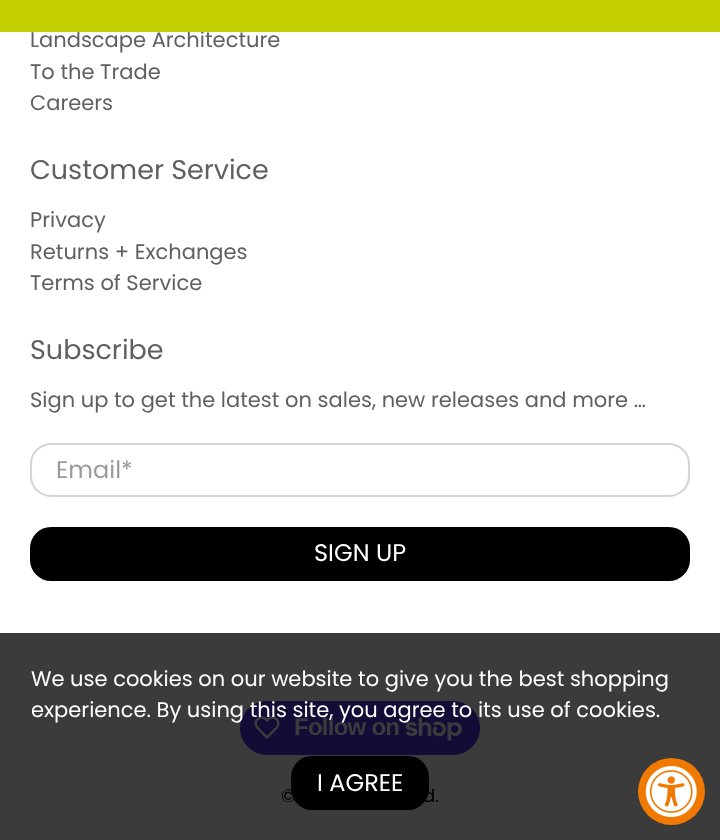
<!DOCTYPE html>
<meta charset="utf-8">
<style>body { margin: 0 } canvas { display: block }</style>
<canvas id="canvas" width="720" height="840"></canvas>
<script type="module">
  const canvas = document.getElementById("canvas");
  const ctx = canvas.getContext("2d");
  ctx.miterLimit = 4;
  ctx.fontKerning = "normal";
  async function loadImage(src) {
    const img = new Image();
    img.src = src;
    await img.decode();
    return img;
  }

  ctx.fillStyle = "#ffffff";
  ctx.fillRect(0, 0, 720, 840);
  ctx.fillStyle = "#3b3b3b";
  ctx.fillRect(0, 633, 720, 207);
  ctx.font = "21px Poppins";
  ctx.fillStyle = "#606060";
  ctx.fillText("Landscape Architecture", 30, 47);
  ctx.fillStyle = "#c3ce00";
  ctx.fillRect(0, 0, 720, 32);
  ctx.fillStyle = "#606060";
  ctx.fillText("To the Trade", 30, 79);
  ctx.fillText("Careers", 30, 110);
  ctx.font = "27px Poppins";
  ctx.fillText("Customer Service", 30, 179);
  ctx.font = "21px Poppins";
  ctx.fillText("Privacy", 30, 227);
  ctx.fillText("Returns + Exchanges", 30, 259);
  ctx.fillText("Terms of Service", 30, 290);
  ctx.font = "27px Poppins";
  ctx.fillText("Subscribe", 30, 359);
  ctx.font = "21px Poppins";
  ctx.fillText("Sign up to get the latest on sales, new releases and more …", 30, 407);
  ctx.beginPath();
  ctx.roundRect(31, 444, 658, 52, 20);
  ctx.strokeStyle = "#d3d3d3";
  ctx.lineWidth = 2;
  ctx.stroke();
  ctx.font = "24px Poppins";
  ctx.fillStyle = "#9b9b9b";
  ctx.fillText("Email*", 56, 478);
  ctx.fillStyle = "#000000";
  ctx.beginPath();
  ctx.roundRect(30, 527, 660, 54, 21);
  ctx.fill();
  ctx.fillStyle = "#ffffff";
  ctx.fillText("SIGN UP", 314, 561);
  ctx.fillStyle = "#130c36";
  ctx.beginPath();
  ctx.roundRect(240, 701, 240, 54, 27);
  ctx.fill();
  ctx.drawImage(await loadImage("img1.png"), 254, 716, 26, 23);
  ctx.letterSpacing = "-0.75px";
  ctx.font = "bold 24px Liberation Sans";
  ctx.fillStyle = "#3b3b3b";
  ctx.fillText("Follow on", 294, 735);
  ctx.drawImage(await loadImage("img2.png"), 405, 717, 57, 24);
  ctx.letterSpacing = "0px";
  ctx.font = "18px Poppins";
  ctx.fillStyle = "#000000";
  ctx.fillText("©", 281, 802);
  ctx.fillText("d.", 423, 802);
  ctx.font = "21px Poppins";
  ctx.fillStyle = "#ffffff";
  ctx.fillText("We use cookies on our website to give you the best shopping", 31, 686);
  ctx.fillText("experience. By using this site, you agree to its use of cookies.", 31, 717);
  ctx.fillStyle = "#000000";
  ctx.beginPath();
  ctx.roundRect(291, 756, 138, 54, 21);
  ctx.fill();
  ctx.font = "24px Poppins";
  ctx.fillStyle = "#ffffff";
  ctx.fillText("I AGREE", 317, 791);
  ctx.fillStyle = "#f07a01";
  ctx.beginPath();
  ctx.arc(671.5, 791.5, 33.5, 0, Math.PI * 2);
  ctx.fill();
  ctx.drawImage(await loadImage("img3.png"), 645, 766, 52, 51);
</script>
